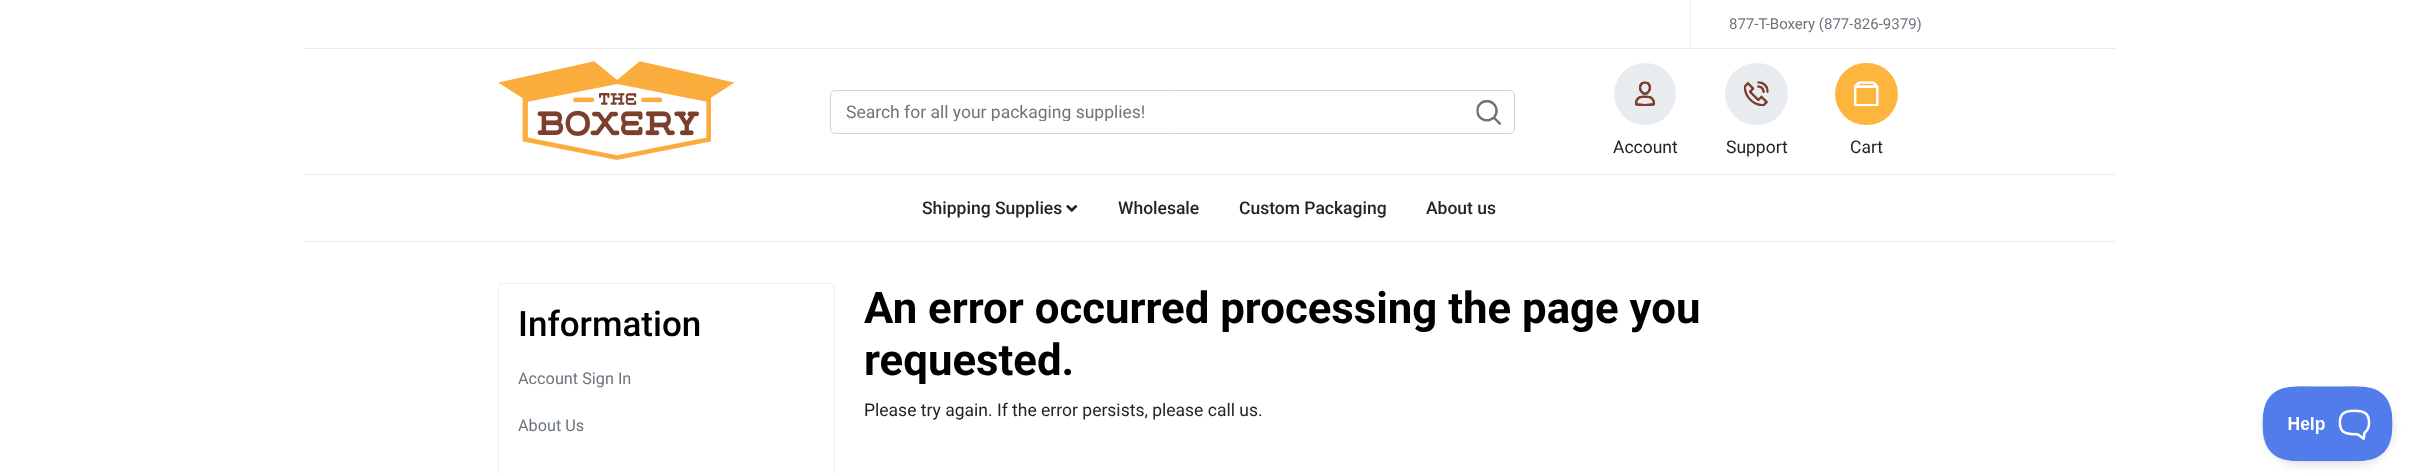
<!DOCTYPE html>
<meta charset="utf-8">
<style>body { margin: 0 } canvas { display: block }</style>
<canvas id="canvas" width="2418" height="473"></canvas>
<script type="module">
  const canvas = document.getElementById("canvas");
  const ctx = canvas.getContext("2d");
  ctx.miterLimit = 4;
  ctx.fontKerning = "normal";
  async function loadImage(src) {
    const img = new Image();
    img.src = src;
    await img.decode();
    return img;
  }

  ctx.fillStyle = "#ffffff";
  ctx.fillRect(0, 0, 2418, 473);
  ctx.fillStyle = "#e9ecef";
  ctx.fillRect(304, 48, 1812, 1);
  ctx.fillRect(1690, 0, 1, 48);
  ctx.font = "15px Roboto";
  ctx.fillStyle = "#6c757d";
  ctx.fillText("877-T-Boxery (877-826-9379)", 1729, 29);
  ctx.fillStyle = "#e9ecef";
  ctx.fillRect(304, 174, 1812, 1);
  ctx.drawImage(await loadImage("img1.png"), 498, 61, 237, 99);
  ctx.beginPath();
  ctx.roundRect(830.5, 90.5, 684, 43, 4.5);
  ctx.strokeStyle = "#ced4da";
  ctx.stroke();
  ctx.save();
  ctx.beginPath();
  ctx.rect(846, 101, 653, 20);
  ctx.clip();
  ctx.font = "17.5px Roboto";
  ctx.fillStyle = "#6c757d";
  ctx.fillText("Search for all your packaging supplies!", 846, 118);
  ctx.restore();
  ctx.drawImage(await loadImage("img2.png"), 1476, 100, 25, 25);
  ctx.beginPath();
  ctx.arc(1645, 94, 31, 0, Math.PI * 2);
  ctx.fill();
  ctx.drawImage(await loadImage("img3.png"), 1635, 81, 20, 25);
  ctx.font = "17.5px Roboto";
  ctx.fillStyle = "#212529";
  ctx.fillText("Account", 1613, 153);
  ctx.fillStyle = "#e9ecef";
  ctx.beginPath();
  ctx.roundRect(1725, 63, 63, 62, 31);
  ctx.fill();
  ctx.drawImage(await loadImage("img4.png"), 1744, 81, 25, 25);
  ctx.fillStyle = "#212529";
  ctx.fillText("Support", 1726, 153);
  ctx.fillStyle = "#feb53e";
  ctx.beginPath();
  ctx.roundRect(1835, 63, 63, 62, 31);
  ctx.fill();
  ctx.drawImage(await loadImage("img5.png"), 1854, 81, 25, 25);
  ctx.fillStyle = "#212529";
  ctx.fillText("Cart", 1850, 153);
  ctx.fillStyle = "#e9ecef";
  ctx.fillRect(304, 241, 1812, 1);
  ctx.font = "500 17.5px Roboto";
  ctx.fillStyle = "#212529";
  ctx.fillText("Shipping Supplies", 922, 214);
  ctx.drawImage(await loadImage("img6.png"), 1066, 205, 12, 7);
  ctx.fillText("Wholesale", 1118, 214);
  ctx.fillText("Custom Packaging", 1239, 214);
  ctx.fillText("About us", 1426, 214);
  ctx.beginPath();
  ctx.roundRect(498.5, 283.5, 336, 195, 4.5);
  ctx.strokeStyle = "#eeeeee";
  ctx.stroke();
  ctx.font = "500 35px Roboto";
  ctx.fillStyle = "#000000";
  ctx.fillText("Information", 518, 336);
  ctx.font = "16.25px Roboto";
  ctx.fillStyle = "#6c757d";
  ctx.fillText("Account Sign In", 518, 384);
  ctx.fillText("About Us", 518, 431);
  ctx.font = "bold 43.75px Roboto";
  ctx.fillStyle = "#000000";
  ctx.fillText("An error occurred processing the page you", 864, 323);
  ctx.fillText("requested.", 864, 375);
  ctx.font = "17.5px Roboto";
  ctx.fillStyle = "#212529";
  ctx.fillText("Please try again. If the error persists, please call us.", 864, 416);
  ctx.fillStyle = "rgba(0, 0, 0, 0.1)";
  ctx.filter = "blur(4.5px)";
  ctx.beginPath();
  ctx.roundRect(2263, 391, 131, 75, 37.5);
  ctx.fill();
  ctx.filter = "none";
  ctx.drawImage(await loadImage("img7.png"), 2262, 386, 131, 76);
</script>
